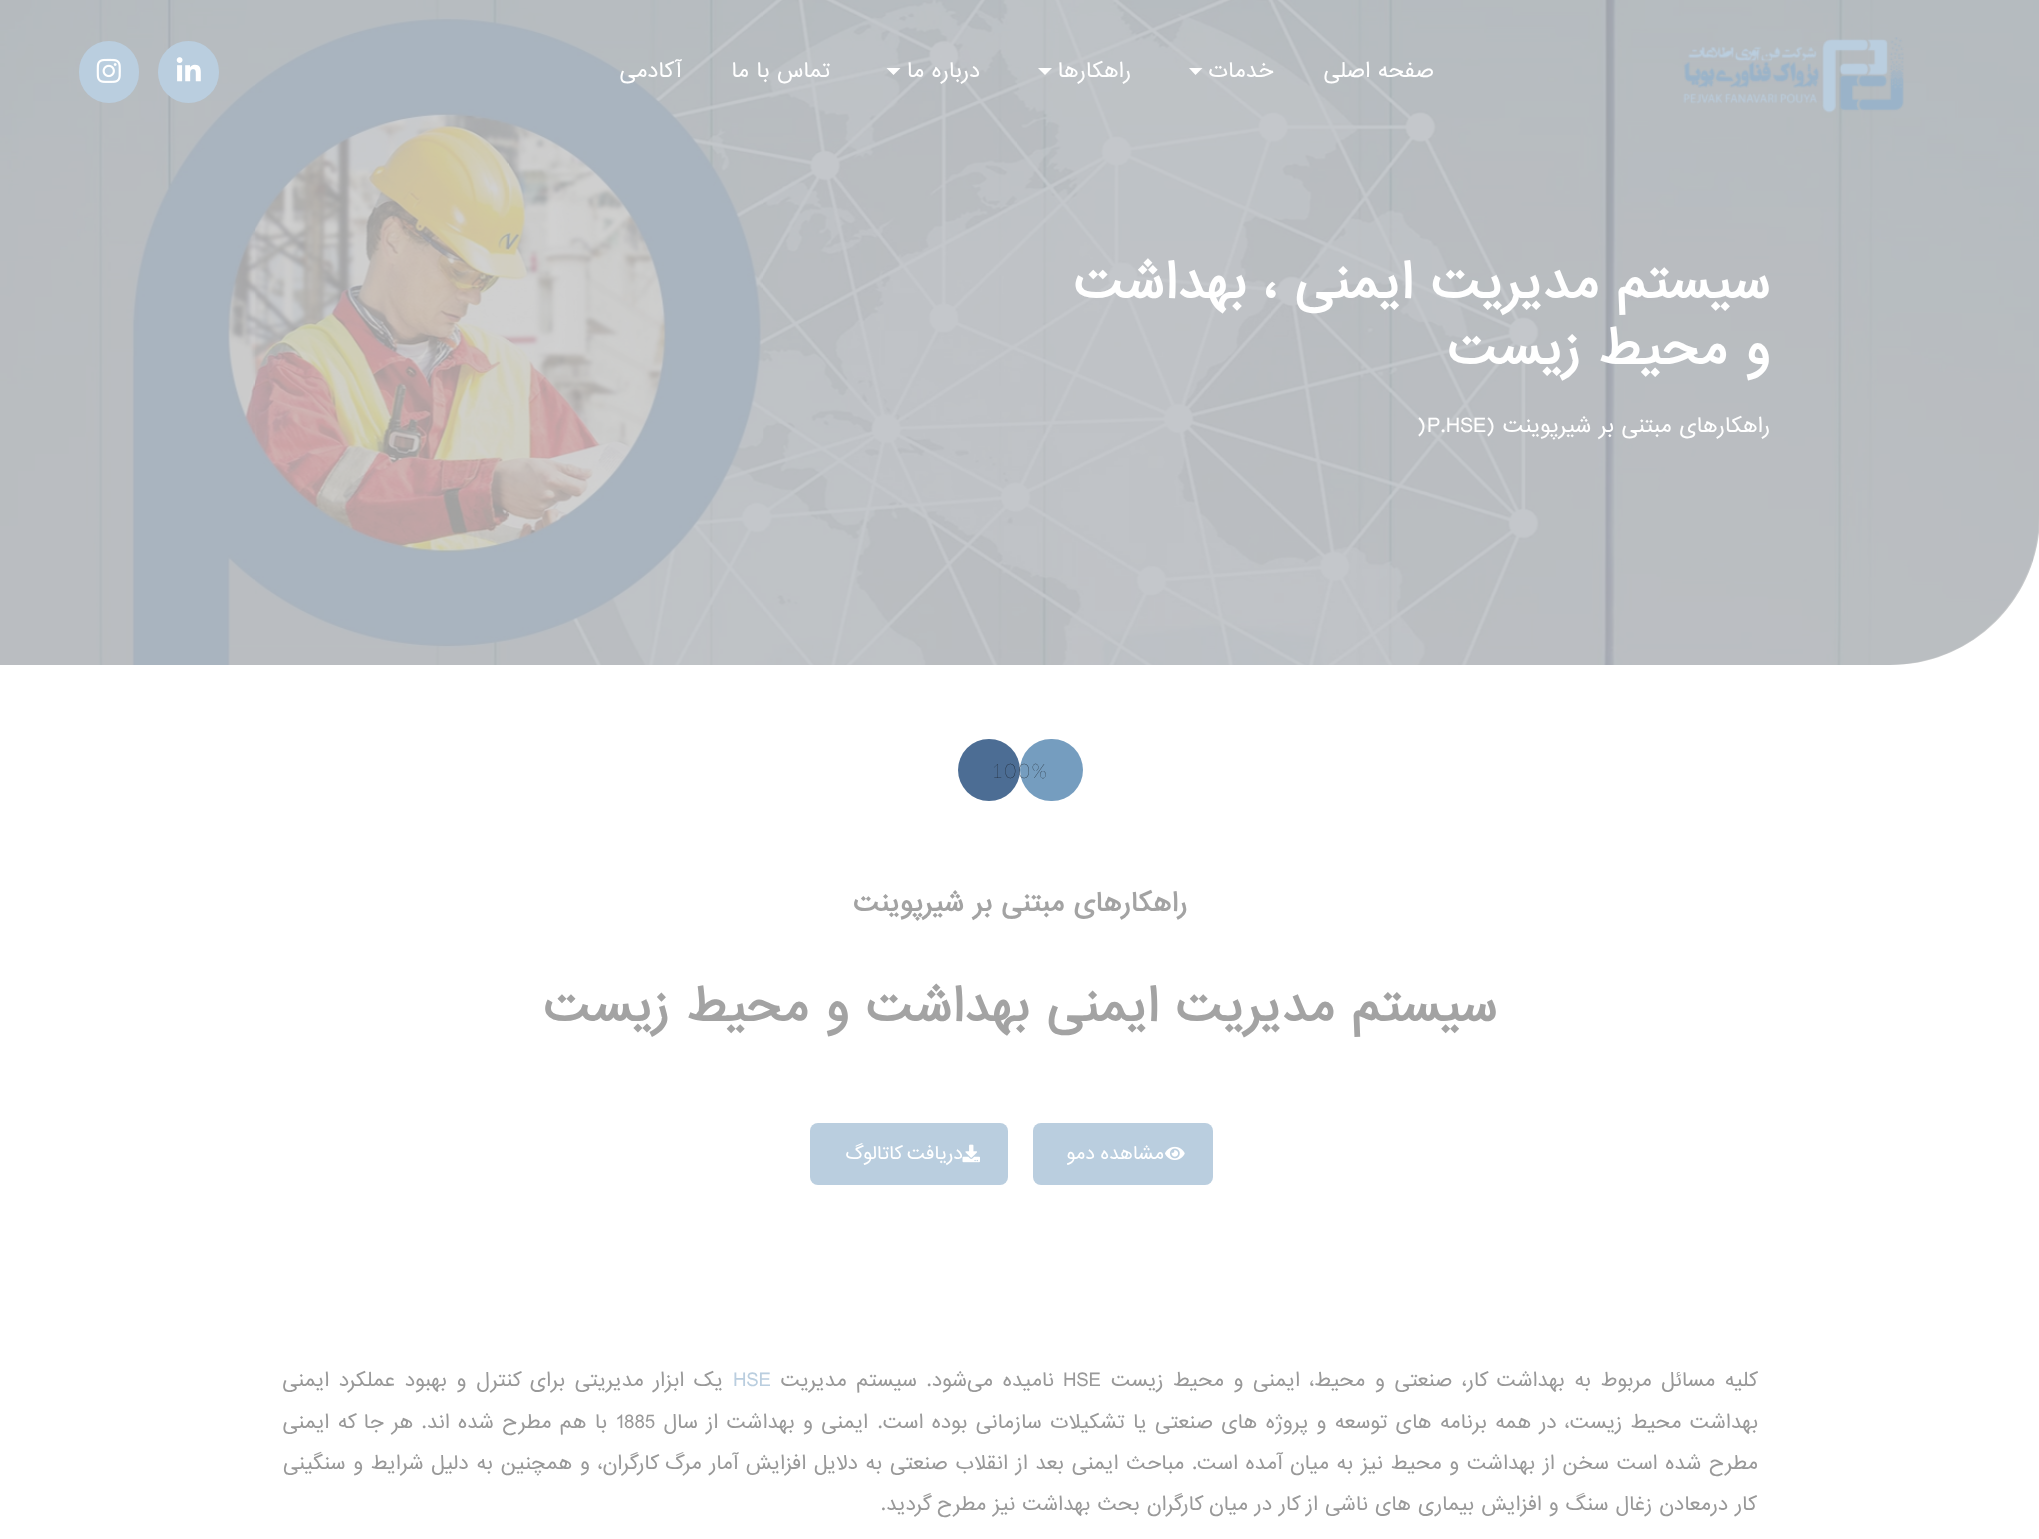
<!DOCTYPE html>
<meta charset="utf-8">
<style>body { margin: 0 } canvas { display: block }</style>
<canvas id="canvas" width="2039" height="1539"></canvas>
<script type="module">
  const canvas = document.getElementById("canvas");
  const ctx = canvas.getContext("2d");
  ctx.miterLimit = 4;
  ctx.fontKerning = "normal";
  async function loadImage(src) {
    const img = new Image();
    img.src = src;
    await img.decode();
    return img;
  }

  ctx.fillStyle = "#ffffff";
  ctx.fillRect(0, 0, 2039, 1539);
  ctx.drawImage(await loadImage("img4.png"), 0, 0, 2039, 665);
  ctx.fillStyle = "rgba(163, 163, 163, 0.5)";
  ctx.beginPath();
  ctx.moveTo(0, 0);
  ctx.lineTo(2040, 0);
  ctx.lineTo(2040, 515);
  ctx.bezierCurveTo(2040, 598, 1973, 665, 1890, 665);
  ctx.lineTo(0, 665);
  ctx.closePath();
  ctx.fill();
  ctx.drawImage(await loadImage("img1.png"), 1683, 37, 221, 76);
  ctx.direction = "rtl";
  ctx.font = "20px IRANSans";
  ctx.fillStyle = "#ffffff";
  ctx.fillText("صفحه اصلی", 1434, 77);
  ctx.fillText("خدمات", 1273, 77);
  ctx.beginPath();
  ctx.moveTo(1202.5, 68);
  ctx.lineTo(1189, 68);
  ctx.lineTo(1195.5, 75);
  ctx.closePath();
  ctx.fill();
  ctx.fillText("راهکارها", 1131, 77);
  ctx.beginPath();
  ctx.moveTo(1052, 68);
  ctx.lineTo(1038, 68);
  ctx.lineTo(1045, 75);
  ctx.closePath();
  ctx.fill();
  ctx.fillText("درباره ما", 980, 77);
  ctx.beginPath();
  ctx.moveTo(900.5, 68);
  ctx.lineTo(886.5, 68);
  ctx.lineTo(893.5, 75);
  ctx.closePath();
  ctx.fill();
  ctx.fillText("تماس با ما", 830, 77);
  ctx.fillText("آکادمی", 681, 77);
  ctx.fillStyle = "#bacedf";
  ctx.beginPath();
  ctx.roundRect(158, 41, 61, 62, 30.5);
  ctx.fill();
  ctx.drawImage(await loadImage("img2.png"), 176, 57, 25, 25);
  ctx.beginPath();
  ctx.roundRect(79, 41, 60, 62, 30);
  ctx.fill();
  ctx.drawImage(await loadImage("img3.png"), 96, 58, 25, 25);
  ctx.font = "bold 47.5px IRANSans";
  ctx.fillStyle = "#ffffff";
  ctx.fillText("سیستم مدیریت ایمنی ، بهداشت", 1770, 298);
  ctx.fillText("و محیط زیست", 1770, 364);
  ctx.font = "20px IRANSans";
  ctx.fillText("راهکارهای مبتنی بر شیرپوینت (", 1770, 432);
  ctx.direction = "ltr";
  ctx.fillText("P.HSE", 1427, 432);
  ctx.fillText(")", 1417, 432);
  ctx.direction = "rtl";
  ctx.font = "bold 25px IRANSans";
  ctx.fillStyle = "#a3a3a3";
  ctx.fillText("راهکارهای مبتنی بر شیرپوینت", 1187, 911);
  ctx.font = "bold 45px IRANSans";
  ctx.fillText("سیستم مدیریت ایمنی بهداشت و محیط زیست", 1497, 1021);
  ctx.fillStyle = "#bacedf";
  ctx.beginPath();
  ctx.roundRect(1033, 1123, 180, 62, 8);
  ctx.fill();
  ctx.drawImage(await loadImage("img5.png"), 1165, 1146, 20, 14);
  ctx.letterSpacing = "0.6px";
  ctx.wordSpacing = "-1px";
  ctx.font = "17.5px IRANSans";
  ctx.fillStyle = "#ffffff";
  ctx.fillText("مشاهده دمو", 1164, 1159);
  ctx.fillStyle = "#bacedf";
  ctx.beginPath();
  ctx.roundRect(810, 1123, 198, 62, 8);
  ctx.fill();
  ctx.drawImage(await loadImage("img6.png"), 962, 1144, 18, 19);
  ctx.fillStyle = "#ffffff";
  ctx.fillText("دریافت کاتالوگ", 963, 1159);
  ctx.letterSpacing = "0px";
  ctx.wordSpacing = "2.6px";
  ctx.font = "18.75px IRANSans";
  ctx.fillStyle = "#999999";
  ctx.fillText("کلیه مسائل مربوط به بهداشت کار، صنعتی و محیط، ایمنی و محیط زیست", 1758, 1386);
  ctx.wordSpacing = "0px";
  ctx.direction = "ltr";
  ctx.fillText("HSE", 1063, 1386);
  ctx.wordSpacing = "2.6px";
  ctx.direction = "rtl";
  ctx.fillText("نامیده می‌شود.", 1054, 1386);
  ctx.fillText("سیستم مدیریت", 917, 1386);
  ctx.wordSpacing = "0px";
  ctx.direction = "ltr";
  ctx.fillStyle = "#bacedf";
  ctx.fillText("HSE", 733, 1386);
  ctx.wordSpacing = "2.6px";
  ctx.direction = "rtl";
  ctx.fillStyle = "#999999";
  ctx.fillText("یک ابزار مدیریتی برای کنترل و بهبود عملکرد ایمنی", 723, 1386);
  ctx.wordSpacing = "1.3px";
  ctx.fillText("بهداشت محیط زیست، در همه برنامه های توسعه و پروژه های صنعتی یا تشکیلات سازمانی بوده است.", 1758, 1428);
  ctx.fillText("ایمنی و بهداشت از سال", 868, 1428);
  ctx.wordSpacing = "0px";
  ctx.direction = "ltr";
  ctx.fillText("1885", 616, 1428);
  ctx.wordSpacing = "1.3px";
  ctx.direction = "rtl";
  ctx.fillText("با هم مطرح شده اند. هر جا که ایمنی", 607, 1428);
  ctx.wordSpacing = "0.7px";
  ctx.fillText("مطرح شده است سخن از بهداشت و محیط نیز به میان آمده است. مباحث ایمنی بعد از انقلاب صنعتی به دلایل افزایش آمار مرگ کارگران، و همچنین به دلیل شرایط و سنگینی", 1758, 1469);
  ctx.wordSpacing = "0px";
  ctx.fillText("کار درمعادن زغال سنگ و افزایش بیماری های ناشی از کار در میان کارگران بحث بهداشت نیز مطرح گردید.", 1757, 1510);
  ctx.fillStyle = "#759dbf";
  ctx.beginPath();
  ctx.roundRect(1020, 739, 63, 62, 31);
  ctx.fill();
  ctx.fillStyle = "#4c6d94";
  ctx.beginPath();
  ctx.arc(989, 770, 31, 0, Math.PI * 2);
  ctx.fill();
  ctx.letterSpacing = "2px";
  ctx.direction = "ltr";
  ctx.font = "100 20px Lato";
  ctx.fillStyle = "#0a0a0a";
  ctx.fillText("100%", 991, 778);
</script>
